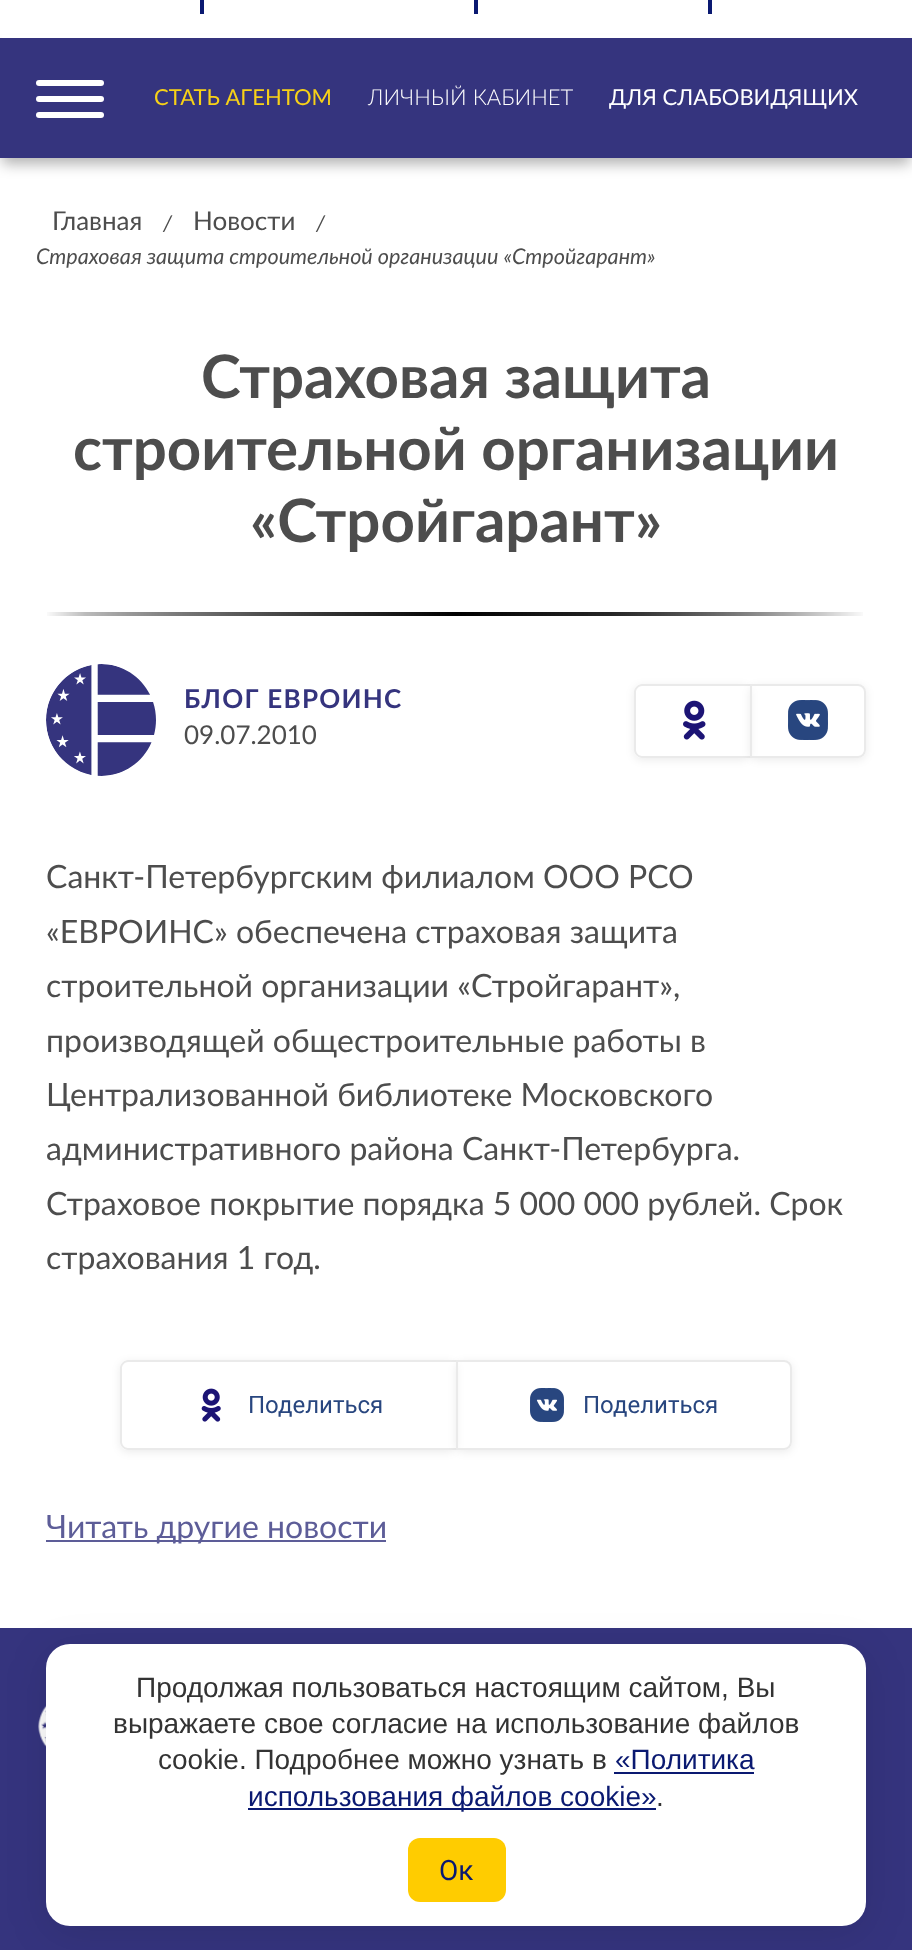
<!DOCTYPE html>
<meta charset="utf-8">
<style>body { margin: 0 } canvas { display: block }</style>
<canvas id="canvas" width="912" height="1950"></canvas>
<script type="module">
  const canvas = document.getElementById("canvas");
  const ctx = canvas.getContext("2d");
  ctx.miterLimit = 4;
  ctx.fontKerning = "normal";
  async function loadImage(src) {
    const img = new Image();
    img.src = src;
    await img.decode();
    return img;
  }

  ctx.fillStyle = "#ffffff";
  ctx.fillRect(0, 0, 912, 1950);
  ctx.fillStyle = "rgba(0, 0, 0, 0.3)";
  ctx.filter = "blur(7px)";
  ctx.beginPath();
  ctx.rect(2, 48, 908, 116);
  ctx.fill();
  ctx.filter = "none";
  ctx.fillStyle = "#ffffff";
  ctx.fillRect(2, 35, 908, 3);
  ctx.fillStyle = "#0a1971";
  ctx.fillRect(200, 0, 4, 14);
  ctx.fillRect(708, 0, 4, 14);
  ctx.fillRect(474, 0, 4, 14);
  ctx.fillStyle = "#35347e";
  ctx.fillRect(0, 38, 912, 120);
  ctx.fillStyle = "#ffffff";
  ctx.beginPath();
  ctx.roundRect(36, 80, 68, 6, 3);
  ctx.fill();
  ctx.beginPath();
  ctx.roundRect(36, 96, 68, 6, 3);
  ctx.fill();
  ctx.beginPath();
  ctx.roundRect(36, 112, 68, 6, 3);
  ctx.fill();
  ctx.font = "22px Lato";
  ctx.fillStyle = "#f7d117";
  ctx.fillText("СТАТЬ АГЕНТОМ", 154, 105);
  ctx.font = "300 22px Lato";
  ctx.fillStyle = "#ffffff";
  ctx.fillText("ЛИЧНЫЙ КАБИНЕТ", 368, 105);
  ctx.font = "22px Lato";
  ctx.fillText("ДЛЯ СЛАБОВИДЯЩИХ", 609, 105);
  ctx.font = "26px Lato";
  ctx.fillStyle = "#4d4d4d";
  ctx.fillText("Главная", 52, 230);
  ctx.font = "italic 21.6px Lato";
  ctx.fillText("/", 163, 231);
  ctx.font = "26px Lato";
  ctx.fillText("Новости", 193, 230);
  ctx.font = "italic 21.6px Lato";
  ctx.fillText("/", 316, 231);
  ctx.fillText("Страховая защита строительной организации «Стройгарант»", 36, 264);
  ctx.font = "bold 60px Lato";
  ctx.fillText("Страховая защита", 201, 398);
  ctx.fillText("строительной организации", 73, 470);
  ctx.fillText("«Стройгарант»", 250, 542);
  ctx.drawImage(await loadImage("img1.png"), 47, 612, 816, 4);
  ctx.drawImage(await loadImage("img2.png"), 46, 664, 110, 112);
  ctx.letterSpacing = "1.25px";
  ctx.font = "bold 26px Lato";
  ctx.fillStyle = "#35347e";
  ctx.fillText("БЛОГ ЕВРОИНС", 184, 708);
  ctx.letterSpacing = "0px";
  ctx.font = "26px Lato";
  ctx.fillStyle = "#4d4d4d";
  ctx.fillText("09.07.2010", 184, 744);
  ctx.save();
  ctx.beginPath();
  ctx.moveTo(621, 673);
  ctx.lineTo(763, 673);
  ctx.lineTo(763, 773);
  ctx.lineTo(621, 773);
  ctx.closePath();
  ctx.moveTo(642, 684);
  ctx.lineTo(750, 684);
  ctx.lineTo(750, 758);
  ctx.lineTo(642, 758);
  ctx.bezierCurveTo(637.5, 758, 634, 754.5, 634, 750);
  ctx.lineTo(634, 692);
  ctx.bezierCurveTo(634, 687.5, 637.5, 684, 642, 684);
  ctx.closePath();
  ctx.clip("evenodd");
  ctx.fillStyle = "rgba(0, 0, 0, 0.08)";
  ctx.filter = "blur(4px)";
  ctx.beginPath();
  ctx.roundRect(634, 686, 116, 74, 8);
  ctx.fill();
  ctx.filter = "none";
  ctx.restore();
  ctx.fillStyle = "#eaeaea";
  ctx.beginPath();
  ctx.moveTo(642, 684);
  ctx.lineTo(750, 684);
  ctx.lineTo(750, 758);
  ctx.lineTo(642, 758);
  ctx.bezierCurveTo(638, 758, 634, 754, 634, 750);
  ctx.lineTo(634, 692);
  ctx.bezierCurveTo(634, 688, 638, 684, 642, 684);
  ctx.closePath();
  ctx.moveTo(642, 686);
  ctx.lineTo(750, 686);
  ctx.lineTo(750, 756);
  ctx.lineTo(642, 756);
  ctx.bezierCurveTo(639, 756, 636, 753, 636, 750);
  ctx.lineTo(636, 692);
  ctx.bezierCurveTo(636, 689, 639, 686, 642, 686);
  ctx.closePath();
  ctx.fill("evenodd");
  ctx.drawImage(await loadImage("img3.png"), 683, 700, 23, 40);
  ctx.save();
  ctx.beginPath();
  ctx.moveTo(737, 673);
  ctx.lineTo(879, 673);
  ctx.lineTo(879, 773);
  ctx.lineTo(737, 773);
  ctx.closePath();
  ctx.moveTo(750, 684);
  ctx.lineTo(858, 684);
  ctx.bezierCurveTo(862.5, 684, 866, 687.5, 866, 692);
  ctx.lineTo(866, 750);
  ctx.bezierCurveTo(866, 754.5, 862.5, 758, 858, 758);
  ctx.lineTo(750, 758);
  ctx.closePath();
  ctx.clip("evenodd");
  ctx.fillStyle = "rgba(0, 0, 0, 0.08)";
  ctx.filter = "blur(4px)";
  ctx.beginPath();
  ctx.roundRect(750, 686, 116, 74, 8);
  ctx.fill();
  ctx.filter = "none";
  ctx.restore();
  ctx.beginPath();
  ctx.roundRect(751, 685, 114, 72, [0, 7, 7, 0]);
  ctx.strokeStyle = "#eaeaea";
  ctx.lineWidth = 2;
  ctx.stroke();
  ctx.drawImage(await loadImage("img4.png"), 788, 700, 40, 40);
  ctx.font = "32px Lato";
  ctx.fillStyle = "#4d4d4d";
  ctx.fillText("Санкт-Петербургским филиалом ООО РСО", 46, 888);
  ctx.fillText("«ЕВРОИНС» обеспечена страховая защита", 46, 943);
  ctx.fillText("строительной организации «Стройгарант»,", 46, 997);
  ctx.fillText("производящей общестроительные работы в", 46, 1052);
  ctx.fillText("Централизованной библиотеке Московского", 46, 1106);
  ctx.fillText("административного района Санкт-Петербурга.", 46, 1160);
  ctx.fillText("Страховое покрытие порядка 5 000 000 рублей. Срок", 46, 1215);
  ctx.fillText("страхования 1 год.", 46, 1269);
  ctx.save();
  ctx.beginPath();
  ctx.moveTo(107, 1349);
  ctx.lineTo(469, 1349);
  ctx.lineTo(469, 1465);
  ctx.lineTo(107, 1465);
  ctx.closePath();
  ctx.moveTo(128, 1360);
  ctx.lineTo(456, 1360);
  ctx.lineTo(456, 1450);
  ctx.lineTo(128, 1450);
  ctx.bezierCurveTo(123.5, 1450, 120, 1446.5, 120, 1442);
  ctx.lineTo(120, 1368);
  ctx.bezierCurveTo(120, 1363.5, 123.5, 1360, 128, 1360);
  ctx.closePath();
  ctx.clip("evenodd");
  ctx.fillStyle = "rgba(0, 0, 0, 0.08)";
  ctx.filter = "blur(4px)";
  ctx.beginPath();
  ctx.roundRect(120, 1362, 336, 90, 8);
  ctx.fill();
  ctx.filter = "none";
  ctx.restore();
  ctx.fillStyle = "#eaeaea";
  ctx.beginPath();
  ctx.moveTo(128, 1360);
  ctx.lineTo(456, 1360);
  ctx.lineTo(456, 1450);
  ctx.lineTo(128, 1450);
  ctx.bezierCurveTo(124, 1450, 120, 1446, 120, 1442);
  ctx.lineTo(120, 1368);
  ctx.bezierCurveTo(120, 1364, 124, 1360, 128, 1360);
  ctx.closePath();
  ctx.moveTo(128, 1362);
  ctx.lineTo(456, 1362);
  ctx.lineTo(456, 1448);
  ctx.lineTo(128, 1448);
  ctx.bezierCurveTo(125, 1448, 122, 1445, 122, 1442);
  ctx.lineTo(122, 1368);
  ctx.bezierCurveTo(122, 1365, 125, 1362, 128, 1362);
  ctx.closePath();
  ctx.fill("evenodd");
  ctx.drawImage(await loadImage("img5.png"), 201, 1388, 20, 34);
  ctx.font = "24px Roboto";
  ctx.fillStyle = "#28467f";
  ctx.fillText("Поделиться", 248, 1413);
  ctx.save();
  ctx.beginPath();
  ctx.moveTo(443, 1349);
  ctx.lineTo(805, 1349);
  ctx.lineTo(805, 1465);
  ctx.lineTo(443, 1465);
  ctx.closePath();
  ctx.moveTo(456, 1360);
  ctx.lineTo(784, 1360);
  ctx.bezierCurveTo(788.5, 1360, 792, 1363.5, 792, 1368);
  ctx.lineTo(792, 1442);
  ctx.bezierCurveTo(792, 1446.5, 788.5, 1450, 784, 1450);
  ctx.lineTo(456, 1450);
  ctx.closePath();
  ctx.clip("evenodd");
  ctx.fillStyle = "rgba(0, 0, 0, 0.08)";
  ctx.filter = "blur(4px)";
  ctx.beginPath();
  ctx.roundRect(456, 1362, 336, 90, 8);
  ctx.fill();
  ctx.filter = "none";
  ctx.restore();
  ctx.beginPath();
  ctx.roundRect(457, 1361, 334, 88, [0, 7, 7, 0]);
  ctx.stroke();
  ctx.drawImage(await loadImage("img6.png"), 530, 1388, 34, 34);
  ctx.fillText("Поделиться", 583, 1413);
  ctx.fillStyle = "#5d5d98";
  ctx.fillRect(46, 1540, 340, 2);
  ctx.font = "32px Lato";
  ctx.fillText("Читать другие новости", 46, 1538);
  ctx.fillStyle = "#35347e";
  ctx.fillRect(0, 1628, 912, 322);
  ctx.drawImage(await loadImage("img7.png"), 38, 1705, 8, 42);
  ctx.fillStyle = "rgba(0, 0, 0, 0.1)";
  ctx.filter = "blur(20px)";
  ctx.beginPath();
  ctx.roundRect(46, 1652, 820, 282, 24);
  ctx.fill();
  ctx.filter = "none";
  ctx.fillStyle = "#ffffff";
  ctx.beginPath();
  ctx.roundRect(46, 1644, 820, 282, 24);
  ctx.fill();
  ctx.font = "28px Liberation Sans";
  ctx.fillStyle = "#333333";
  ctx.fillText("Продолжая пользоваться настоящим сайтом, Вы", 136, 1697);
  ctx.fillText("выражаете свое согласие на использование файлов", 113, 1733);
  ctx.fillText("cookie. Подробнее можно узнать в", 158, 1769);
  ctx.fillStyle = "#0a1971";
  ctx.fillText("«Политика", 615, 1769);
  ctx.fillRect(614, 1772, 140, 2);
  ctx.fillRect(248, 1808, 408, 2);
  ctx.fillText("использования файлов cookie»", 248, 1806);
  ctx.fillStyle = "#333333";
  ctx.fillText(".", 656, 1806);
  ctx.fillStyle = "#ffcc00";
  ctx.beginPath();
  ctx.roundRect(408, 1838, 98, 64, 12);
  ctx.fill();
  ctx.font = "28px Roboto";
  ctx.fillStyle = "#0a1971";
  ctx.fillText("Ок", 439, 1880);
</script>
